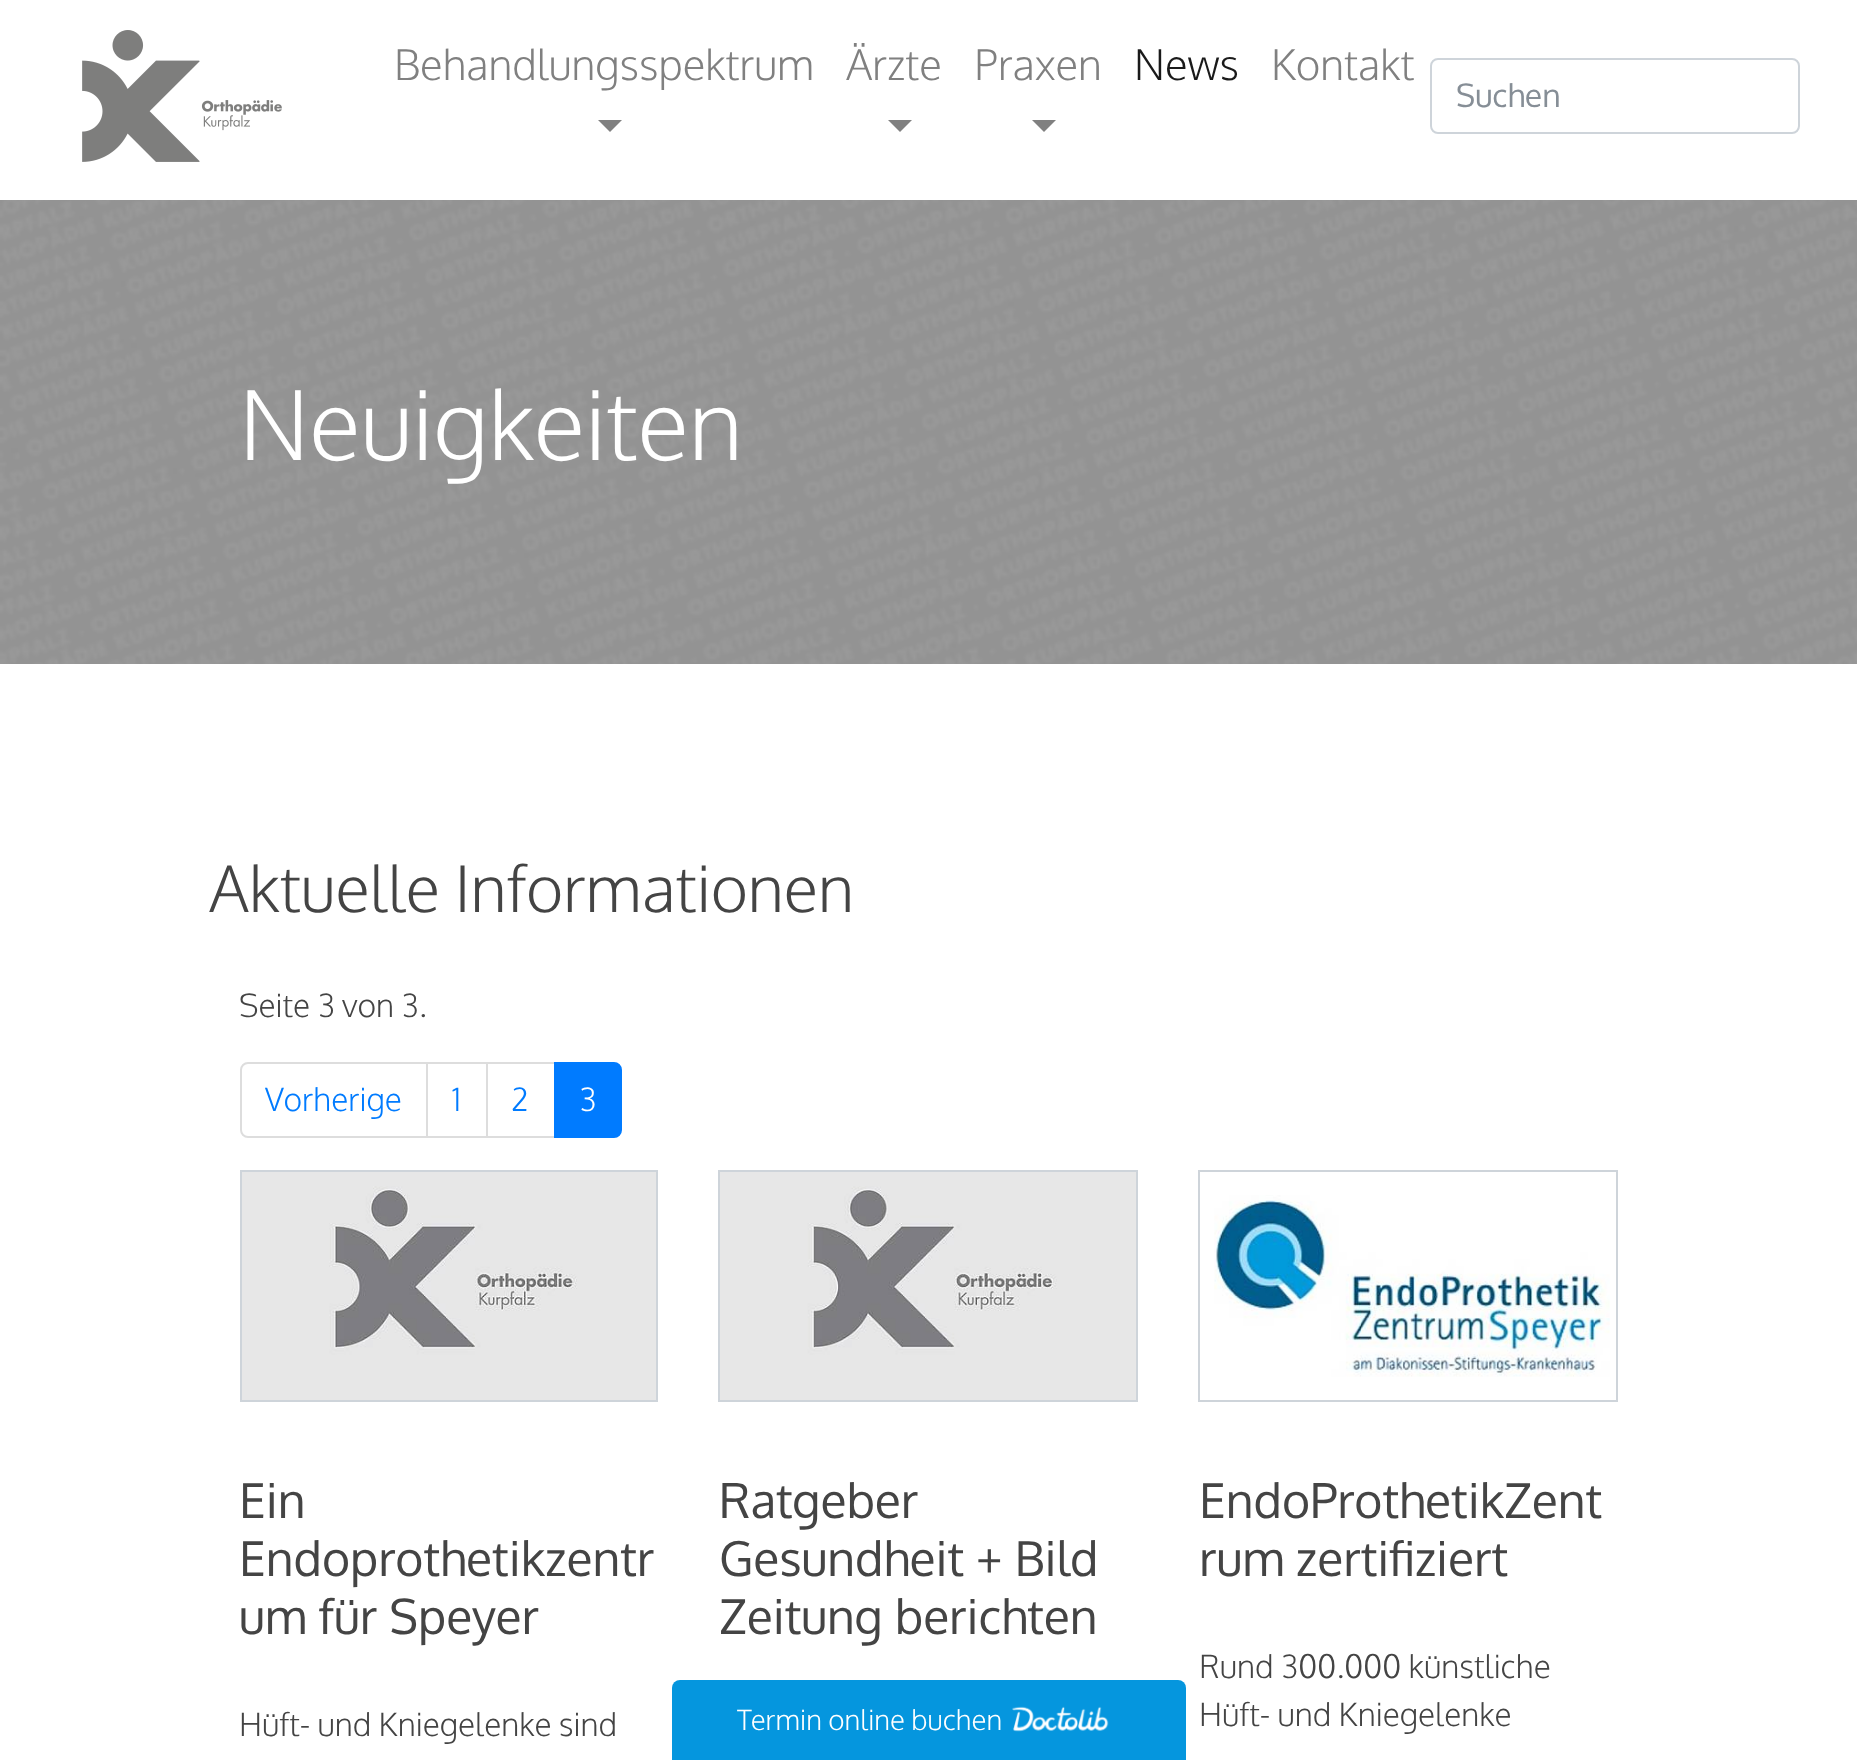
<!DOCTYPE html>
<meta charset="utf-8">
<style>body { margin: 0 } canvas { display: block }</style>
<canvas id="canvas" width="1857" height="1760"></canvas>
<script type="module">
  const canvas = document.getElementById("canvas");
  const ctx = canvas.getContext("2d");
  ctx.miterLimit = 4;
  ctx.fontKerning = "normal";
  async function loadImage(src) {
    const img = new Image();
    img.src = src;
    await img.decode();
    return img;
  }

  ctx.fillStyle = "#ffffff";
  ctx.fillRect(0, 0, 1857, 1760);
  ctx.drawImage(await loadImage("img1.png"), 82, 30, 200, 132);
  ctx.font = "300 42.25px Oxygen";
  ctx.fillStyle = "#808080";
  ctx.fillText("Behandlungsspektrum", 394, 80);
  ctx.beginPath();
  ctx.moveTo(598, 120);
  ctx.lineTo(622, 120);
  ctx.lineTo(610, 132);
  ctx.closePath();
  ctx.fill();
  ctx.fillText("Ärzte", 846, 80);
  ctx.beginPath();
  ctx.moveTo(888, 120);
  ctx.lineTo(912, 120);
  ctx.lineTo(900, 132);
  ctx.closePath();
  ctx.fill();
  ctx.fillText("Praxen", 974, 80);
  ctx.beginPath();
  ctx.moveTo(1032, 120);
  ctx.lineTo(1056, 120);
  ctx.lineTo(1044, 132);
  ctx.closePath();
  ctx.fill();
  ctx.fillStyle = "#1a1a1a";
  ctx.fillText("News", 1134, 80);
  ctx.fillStyle = "#808080";
  ctx.fillText("Kontakt", 1271, 80);
  ctx.beginPath();
  ctx.roundRect(1431, 59, 368, 74, 7);
  ctx.strokeStyle = "#ced4da";
  ctx.lineWidth = 2;
  ctx.stroke();
  ctx.font = "32px Oxygen";
  ctx.fillStyle = "#868e96";
  ctx.fillText("Suchen", 1456, 107);
  ctx.drawImage(await loadImage("img2.png"), 0, 200, 1857, 464);
  ctx.font = "300 96px Oxygen";
  ctx.fillStyle = "#ffffff";
  ctx.fillText("Neuigkeiten", 239, 460);
  ctx.font = "300 64px Oxygen";
  ctx.fillStyle = "#444444";
  ctx.fillText("Aktuelle Informationen", 209, 912);
  ctx.font = "300 32px Oxygen";
  ctx.fillText("Seite 3 von 3.", 239, 1017);
  ctx.beginPath();
  ctx.roundRect(241, 1063, 186, 74, [7, 0, 0, 7]);
  ctx.strokeStyle = "#dddddd";
  ctx.stroke();
  ctx.fillStyle = "#007bff";
  ctx.fillText("Vorherige", 265, 1111);
  ctx.strokeRect(427, 1063, 60, 74);
  ctx.fillText("1", 452, 1111);
  ctx.strokeRect(487, 1063, 68, 74);
  ctx.fillText("2", 511, 1111);
  ctx.beginPath();
  ctx.roundRect(555, 1063, 66, 74, [0, 7, 7, 0]);
  ctx.fill();
  ctx.strokeStyle = "#007bff";
  ctx.stroke();
  ctx.fillStyle = "#ffffff";
  ctx.fillText("3", 579, 1111);
  ctx.strokeStyle = "#ced4da";
  ctx.strokeRect(241, 1171, 416, 230);
  ctx.drawImage(await loadImage("img3.png"), 242, 1172, 414, 228);
  ctx.font = "48px Oxygen";
  ctx.fillStyle = "#444444";
  ctx.fillText("Ein", 239, 1518);
  ctx.fillText("Endoprothetikzentr", 239, 1576);
  ctx.fillText("um für Speyer", 239, 1634);
  ctx.font = "300 32px Oxygen";
  ctx.fillText("Hüft- und Kniegelenke sind", 239, 1736);
  ctx.strokeRect(719, 1171, 418, 230);
  ctx.drawImage(await loadImage("img4.png"), 720, 1172, 416, 228);
  ctx.font = "48px Oxygen";
  ctx.fillText("Ratgeber", 719, 1518);
  ctx.fillText("Gesundheit + Bild", 719, 1576);
  ctx.fillText("Zeitung berichten", 719, 1634);
  ctx.strokeRect(1199, 1171, 418, 230);
  ctx.drawImage(await loadImage("img5.png"), 1214, 1195, 396, 182);
  ctx.fillText("EndoProthetikZent", 1199, 1518);
  ctx.fillText("rum zertifiziert", 1199, 1576);
  ctx.font = "300 32px Oxygen";
  ctx.fillText("Rund 300.000 künstliche", 1199, 1678);
  ctx.fillText("Hüft- und Kniegelenke", 1199, 1726);
  ctx.fillStyle = "#0596de";
  ctx.beginPath();
  ctx.roundRect(672, 1680, 514, 80, [8, 8, 0, 0]);
  ctx.fill();
  ctx.font = "300 28px Oxygen";
  ctx.fillStyle = "#ffffff";
  ctx.fillText("Termin online buchen", 737, 1730);
  ctx.drawImage(await loadImage("img6.png"), 1012, 1706, 97, 26);
</script>
